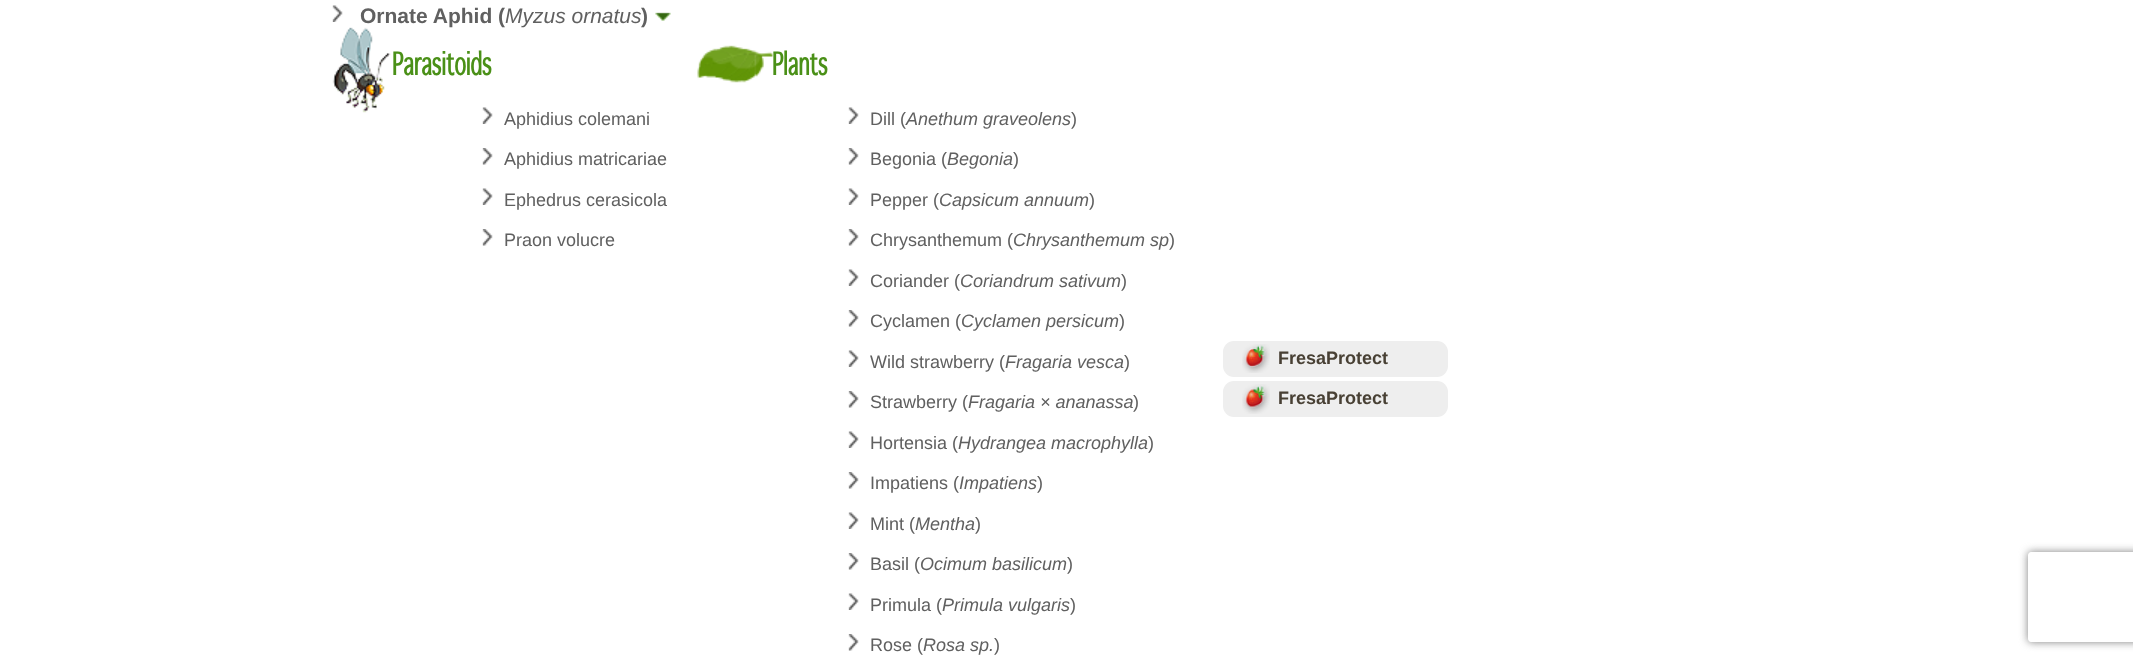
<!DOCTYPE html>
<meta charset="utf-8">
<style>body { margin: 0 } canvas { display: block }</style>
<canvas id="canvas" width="2133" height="663"></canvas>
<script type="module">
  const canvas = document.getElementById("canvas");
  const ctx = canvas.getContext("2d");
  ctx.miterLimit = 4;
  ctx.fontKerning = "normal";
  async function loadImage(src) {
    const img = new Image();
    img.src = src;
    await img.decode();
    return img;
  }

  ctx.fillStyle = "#ffffff";
  ctx.fillRect(0, 0, 2133, 663);
  ctx.drawImage(await loadImage("img1.png"), 332, 5, 11, 17);
  ctx.drawImage(await loadImage("img3.png"), 332, 27, 59, 86);
  ctx.font = "bold 21px Liberation Sans";
  ctx.fillStyle = "#606060";
  ctx.fillText("Ornate Aphid (", 360, 23);
  ctx.font = "italic 21px Liberation Sans";
  ctx.fillText("Myzus ornatus", 505, 23);
  ctx.font = "bold 21px Liberation Sans";
  ctx.fillText(")", 641, 23);
  ctx.drawImage(await loadImage("img2.png"), 655, 12, 16, 9);
  ctx.font = "bold 30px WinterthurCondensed";
  ctx.fillStyle = "#4a9017";
  ctx.fillText("Parasitoids", 392, 75);
  ctx.drawImage(await loadImage("img1.png"), 482, 107, 11, 17);
  ctx.font = "18px Liberation Sans";
  ctx.fillStyle = "#606060";
  ctx.fillText("Aphidius colemani", 504, 125);
  ctx.drawImage(await loadImage("img4.png"), 482, 148, 11, 17);
  ctx.fillText("Aphidius matricariae", 504, 165);
  ctx.drawImage(await loadImage("img1.png"), 482, 188, 11, 17);
  ctx.fillText("Ephedrus cerasicola", 504, 206);
  ctx.drawImage(await loadImage("img4.png"), 482, 229, 11, 17);
  ctx.fillText("Praon volucre", 504, 246);
  ctx.drawImage(await loadImage("img5.png"), 697, 45, 76, 38);
  ctx.font = "bold 30px WinterthurCondensed";
  ctx.fillStyle = "#4a9017";
  ctx.fillText("Plants", 772, 75);
  ctx.drawImage(await loadImage("img1.png"), 848, 107, 11, 17);
  ctx.font = "18px Liberation Sans";
  ctx.fillStyle = "#606060";
  ctx.fillText("Dill (", 870, 125);
  ctx.font = "italic 18px Liberation Sans";
  ctx.fillText("Anethum graveolens", 906, 125);
  ctx.font = "18px Liberation Sans";
  ctx.fillText(")", 1071, 125);
  ctx.drawImage(await loadImage("img4.png"), 848, 148, 11, 17);
  ctx.fillText("Begonia (", 870, 165);
  ctx.font = "italic 18px Liberation Sans";
  ctx.fillText("Begonia", 947, 165);
  ctx.font = "18px Liberation Sans";
  ctx.fillText(")", 1013, 165);
  ctx.drawImage(await loadImage("img1.png"), 848, 188, 11, 17);
  ctx.fillText("Pepper (", 870, 206);
  ctx.font = "italic 18px Liberation Sans";
  ctx.fillText("Capsicum annuum", 939, 206);
  ctx.font = "18px Liberation Sans";
  ctx.fillText(")", 1089, 206);
  ctx.drawImage(await loadImage("img4.png"), 848, 229, 11, 17);
  ctx.fillText("Chrysanthemum (", 870, 246);
  ctx.font = "italic 18px Liberation Sans";
  ctx.fillText("Chrysanthemum sp", 1013, 246);
  ctx.font = "18px Liberation Sans";
  ctx.fillText(")", 1169, 246);
  ctx.drawImage(await loadImage("img1.png"), 848, 269, 11, 17);
  ctx.fillText("Coriander (", 870, 287);
  ctx.font = "italic 18px Liberation Sans";
  ctx.fillText("Coriandrum sativum", 960, 287);
  ctx.font = "18px Liberation Sans";
  ctx.fillText(")", 1121, 287);
  ctx.drawImage(await loadImage("img4.png"), 848, 310, 11, 17);
  ctx.fillText("Cyclamen (", 870, 327);
  ctx.font = "italic 18px Liberation Sans";
  ctx.fillText("Cyclamen persicum", 961, 327);
  ctx.font = "18px Liberation Sans";
  ctx.fillText(")", 1119, 327);
  ctx.drawImage(await loadImage("img1.png"), 848, 350, 11, 17);
  ctx.fillText("Wild strawberry (", 870, 368);
  ctx.font = "italic 18px Liberation Sans";
  ctx.fillText("Fragaria vesca", 1005, 368);
  ctx.font = "18px Liberation Sans";
  ctx.fillText(")", 1124, 368);
  ctx.fillStyle = "#eeeeee";
  ctx.beginPath();
  ctx.roundRect(1223, 341, 225, 36, 11);
  ctx.fill();
  ctx.drawImage(await loadImage("img6.png"), 1242, 344, 28, 29);
  ctx.font = "bold 18px Liberation Sans";
  ctx.fillStyle = "#484034";
  ctx.fillText("FresaProtect", 1278, 364);
  ctx.drawImage(await loadImage("img4.png"), 848, 391, 11, 17);
  ctx.font = "18px Liberation Sans";
  ctx.fillStyle = "#606060";
  ctx.fillText("Strawberry (", 870, 408);
  ctx.font = "italic 18px Liberation Sans";
  ctx.fillText("Fragaria × ananassa", 968, 408);
  ctx.font = "18px Liberation Sans";
  ctx.fillText(")", 1133, 408);
  ctx.fillStyle = "#eeeeee";
  ctx.beginPath();
  ctx.roundRect(1223, 381, 225, 36, 11);
  ctx.fill();
  ctx.drawImage(await loadImage("img7.png"), 1242, 384, 28, 30);
  ctx.font = "bold 18px Liberation Sans";
  ctx.fillStyle = "#484034";
  ctx.fillText("FresaProtect", 1278, 404);
  ctx.drawImage(await loadImage("img1.png"), 848, 431, 11, 17);
  ctx.font = "18px Liberation Sans";
  ctx.fillStyle = "#606060";
  ctx.fillText("Hortensia (", 870, 449);
  ctx.font = "italic 18px Liberation Sans";
  ctx.fillText("Hydrangea macrophylla", 958, 449);
  ctx.font = "18px Liberation Sans";
  ctx.fillText(")", 1148, 449);
  ctx.drawImage(await loadImage("img4.png"), 848, 472, 11, 17);
  ctx.fillText("Impatiens (", 870, 489);
  ctx.font = "italic 18px Liberation Sans";
  ctx.fillText("Impatiens", 959, 489);
  ctx.font = "18px Liberation Sans";
  ctx.fillText(")", 1037, 489);
  ctx.drawImage(await loadImage("img1.png"), 848, 512, 11, 17);
  ctx.fillText("Mint (", 870, 530);
  ctx.font = "italic 18px Liberation Sans";
  ctx.fillText("Mentha", 915, 530);
  ctx.font = "18px Liberation Sans";
  ctx.fillText(")", 975, 530);
  ctx.drawImage(await loadImage("img4.png"), 848, 553, 11, 17);
  ctx.fillText("Basil (", 870, 570);
  ctx.font = "italic 18px Liberation Sans";
  ctx.fillText("Ocimum basilicum", 920, 570);
  ctx.font = "18px Liberation Sans";
  ctx.fillText(")", 1067, 570);
  ctx.drawImage(await loadImage("img1.png"), 848, 593, 11, 17);
  ctx.fillText("Primula (", 870, 611);
  ctx.font = "italic 18px Liberation Sans";
  ctx.fillText("Primula vulgaris", 942, 611);
  ctx.font = "18px Liberation Sans";
  ctx.fillText(")", 1070, 611);
  ctx.drawImage(await loadImage("img4.png"), 848, 634, 11, 17);
  ctx.fillText("Rose (", 870, 651);
  ctx.font = "italic 18px Liberation Sans";
  ctx.fillText("Rosa sp.", 923, 651);
  ctx.font = "18px Liberation Sans";
  ctx.fillText(")", 994, 651);
  ctx.save();
  ctx.beginPath();
  ctx.moveTo(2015, 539);
  ctx.lineTo(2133, 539);
  ctx.lineTo(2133, 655);
  ctx.lineTo(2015, 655);
  ctx.closePath();
  ctx.moveTo(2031, 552);
  ctx.lineTo(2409, 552);
  ctx.bezierCurveTo(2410.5, 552, 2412, 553.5, 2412, 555);
  ctx.lineTo(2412, 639);
  ctx.bezierCurveTo(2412, 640.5, 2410.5, 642, 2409, 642);
  ctx.lineTo(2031, 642);
  ctx.bezierCurveTo(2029.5, 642, 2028, 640.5, 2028, 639);
  ctx.lineTo(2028, 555);
  ctx.bezierCurveTo(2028, 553.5, 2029.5, 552, 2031, 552);
  ctx.closePath();
  ctx.clip("evenodd");
  ctx.fillStyle = "#808080";
  ctx.filter = "blur(4px)";
  ctx.beginPath();
  ctx.roundRect(2028, 552, 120, 90, 3);
  ctx.fill();
  ctx.filter = "none";
  ctx.restore();
</script>
